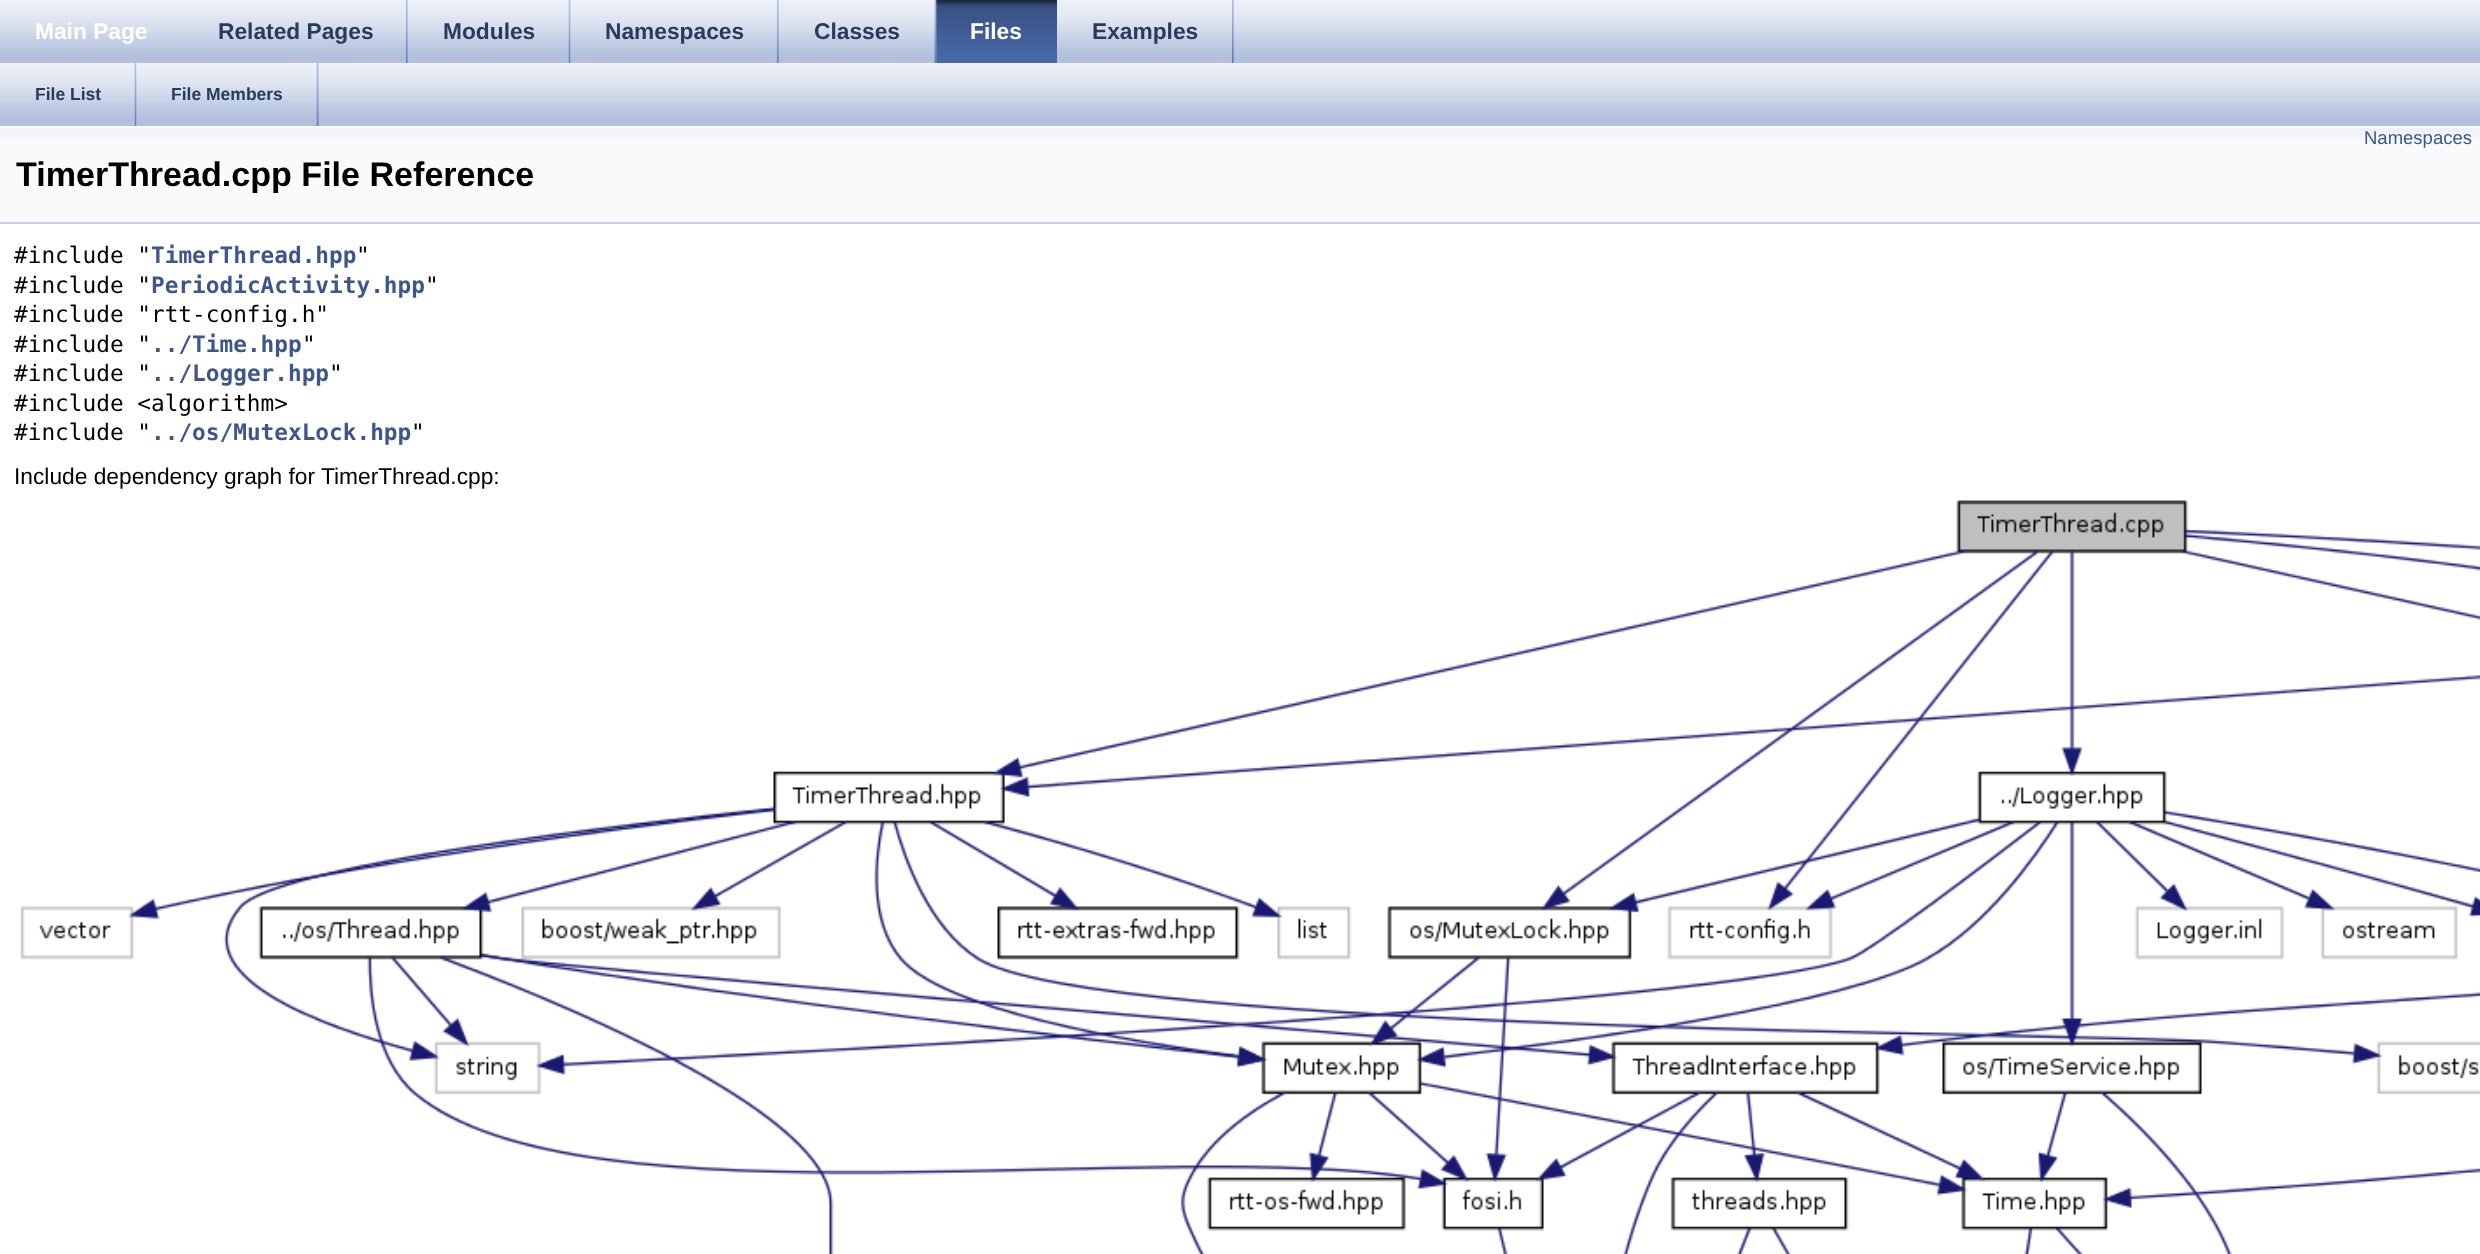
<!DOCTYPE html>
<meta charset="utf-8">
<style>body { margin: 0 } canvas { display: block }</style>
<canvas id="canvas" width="2480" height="1254"></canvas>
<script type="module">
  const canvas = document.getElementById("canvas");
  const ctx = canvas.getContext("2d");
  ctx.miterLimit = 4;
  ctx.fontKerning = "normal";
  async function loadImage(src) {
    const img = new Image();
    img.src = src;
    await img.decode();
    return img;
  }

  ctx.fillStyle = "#ffffff";
  ctx.fillRect(0, 0, 2480, 1254);
  ctx.drawImage(await loadImage("img1.png"), 0, 0, 2480, 63);
  ctx.font = "bold 22.75px Liberation Sans";
  ctx.fillText("Main Page", 35, 39);
  ctx.drawImage(await loadImage("img2.png"), 406, 0, 2, 63);
  ctx.fillStyle = "#283a5d";
  ctx.fillText("Related Pages", 218, 39);
  ctx.drawImage(await loadImage("img3.png"), 407, 0, 1, 63);
  ctx.drawImage(await loadImage("img4.png"), 568, 0, 3, 63);
  ctx.fillText("Modules", 443, 39);
  ctx.drawImage(await loadImage("img5.png"), 570, 0, 1, 63);
  ctx.drawImage(await loadImage("img2.png"), 777, 0, 2, 63);
  ctx.fillText("Namespaces", 605, 39);
  ctx.drawImage(await loadImage("img3.png"), 778, 0, 1, 63);
  ctx.drawImage(await loadImage("img6.png"), 934, 0, 3, 63);
  ctx.fillText("Classes", 814, 39);
  ctx.drawImage(await loadImage("img7.png"), 936, 0, 1, 63);
  ctx.drawImage(await loadImage("img8.png"), 936, 0, 121, 63);
  ctx.fillStyle = "#ffffff";
  ctx.fillText("Files", 970, 39);
  ctx.drawImage(await loadImage("img2.png"), 1232, 0, 2, 63);
  ctx.fillStyle = "#283a5d";
  ctx.fillText("Examples", 1092, 39);
  ctx.drawImage(await loadImage("img1.png"), 0, 63, 2480, 63);
  ctx.drawImage(await loadImage("img4.png"), 134, 63, 3, 63);
  ctx.font = "bold 17.5px Liberation Sans";
  ctx.fillText("File List", 35, 100);
  ctx.drawImage(await loadImage("img5.png"), 136, 63, 1, 63);
  ctx.drawImage(await loadImage("img4.png"), 316, 63, 3, 63);
  ctx.fillText("File Members", 171, 100);
  ctx.fillStyle = "#f9fafc";
  ctx.fillRect(0, 140, 2480, 82);
  ctx.drawImage(await loadImage("img9.png"), 0, 126, 2480, 14);
  ctx.fillStyle = "#c4cfe5";
  ctx.fillRect(0, 222, 2480, 2);
  ctx.font = "18.5px Liberation Sans";
  ctx.fillStyle = "#3d578c";
  ctx.fillText("Namespaces", 2364, 144);
  ctx.font = "bold 34.1px Liberation Sans";
  ctx.fillStyle = "#000000";
  ctx.fillText("TimerThread.cpp File Reference", 16, 186);
  ctx.font = "22.75px DejaVu Sans Mono";
  ctx.fillText("#include \"", 14, 263);
  ctx.font = "bold 22.75px DejaVu Sans Mono";
  ctx.fillStyle = "#3d578c";
  ctx.fillText("TimerThread.hpp", 151, 263);
  ctx.font = "22.75px DejaVu Sans Mono";
  ctx.fillStyle = "#000000";
  ctx.fillText("\"", 356, 263);
  ctx.fillText("#include \"", 14, 293);
  ctx.font = "bold 22.75px DejaVu Sans Mono";
  ctx.fillStyle = "#3d578c";
  ctx.fillText("PeriodicActivity.hpp", 151, 293);
  ctx.font = "22.75px DejaVu Sans Mono";
  ctx.fillStyle = "#000000";
  ctx.fillText("\"", 425, 293);
  ctx.fillText("#include \"rtt-config.h\"", 14, 322);
  ctx.fillText("#include \"", 14, 352);
  ctx.font = "bold 22.75px DejaVu Sans Mono";
  ctx.fillStyle = "#3d578c";
  ctx.fillText("../Time.hpp", 151, 352);
  ctx.font = "22.75px DejaVu Sans Mono";
  ctx.fillStyle = "#000000";
  ctx.fillText("\"", 302, 352);
  ctx.fillText("#include \"", 14, 381);
  ctx.font = "bold 22.75px DejaVu Sans Mono";
  ctx.fillStyle = "#3d578c";
  ctx.fillText("../Logger.hpp", 151, 381);
  ctx.font = "22.75px DejaVu Sans Mono";
  ctx.fillStyle = "#000000";
  ctx.fillText("\"", 329, 381);
  ctx.fillText("#include <algorithm>", 14, 411);
  ctx.fillText("#include \"", 14, 440);
  ctx.font = "bold 22.75px DejaVu Sans Mono";
  ctx.fillStyle = "#3d578c";
  ctx.fillText("../os/MutexLock.hpp", 151, 440);
  ctx.font = "22.75px DejaVu Sans Mono";
  ctx.fillStyle = "#000000";
  ctx.fillText("\"", 411, 440);
  ctx.font = "22.75px Liberation Sans";
  ctx.fillText("Include dependency graph for TimerThread.cpp:", 14, 484);
  ctx.drawImage(await loadImage("img10.png"), 20, 500, 2460, 754);
</script>
